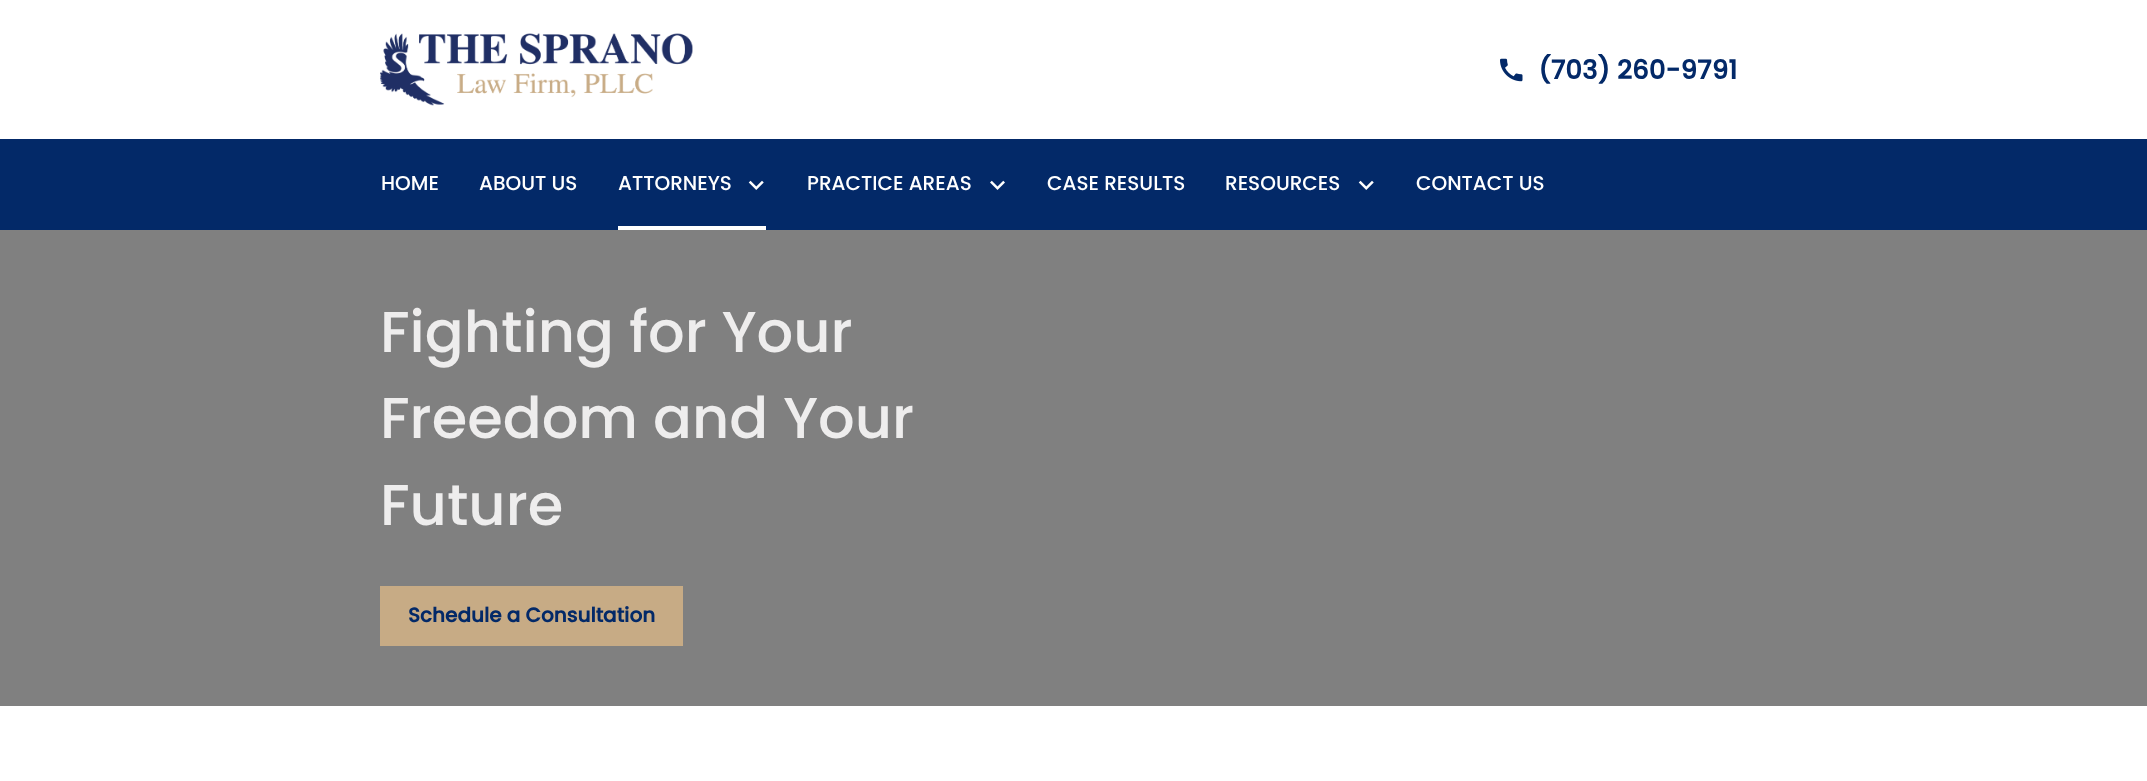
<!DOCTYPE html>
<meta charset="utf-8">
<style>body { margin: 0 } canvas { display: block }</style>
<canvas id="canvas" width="2147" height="781"></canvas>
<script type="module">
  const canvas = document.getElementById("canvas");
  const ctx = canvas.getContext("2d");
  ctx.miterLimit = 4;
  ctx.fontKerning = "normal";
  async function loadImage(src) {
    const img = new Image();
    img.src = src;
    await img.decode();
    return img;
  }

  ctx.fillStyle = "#ffffff";
  ctx.fillRect(0, 0, 2147, 781);
  ctx.drawImage(await loadImage("img1.png"), 380, 33, 313, 73);
  ctx.drawImage(await loadImage("img2.png"), 1500, 58, 23, 24);
  ctx.font = "bold 26px Poppins";
  ctx.fillStyle = "#032968";
  ctx.fillText("(703) 260-9791", 1538, 79);
  ctx.fillRect(0, 139, 2147, 91);
  ctx.font = "500 20px Poppins";
  ctx.fillStyle = "#ffffff";
  ctx.fillText("HOME", 381, 190);
  ctx.fillText("ABOUT US", 479, 190);
  ctx.fillText("ATTORNEYS", 618, 190);
  ctx.drawImage(await loadImage("img3.png"), 748, 180, 16, 10);
  ctx.fillRect(618, 226, 148, 4);
  ctx.fillText("PRACTICE AREAS", 807, 190);
  ctx.drawImage(await loadImage("img4.png"), 990, 180, 15, 10);
  ctx.fillText("CASE RESULTS", 1047, 190);
  ctx.fillText("RESOURCES", 1225, 190);
  ctx.drawImage(await loadImage("img3.png"), 1358, 180, 16, 10);
  ctx.fillText("CONTACT US", 1416, 190);
  ctx.fillStyle = "#808080";
  ctx.fillRect(0, 230, 2147, 476);
  ctx.font = "500 57.5px Poppins";
  ctx.fillStyle = "#eeeded";
  ctx.fillText("Fighting for Your", 380, 352);
  ctx.fillText("Freedom and Your", 380, 438);
  ctx.fillText("Future", 380, 525);
  ctx.fillStyle = "#c7ab85";
  ctx.fillRect(380, 586, 303, 60);
  ctx.font = "bold 20px Poppins";
  ctx.fillStyle = "#032968";
  ctx.fillText("Schedule a Consultation", 408, 622);
</script>
